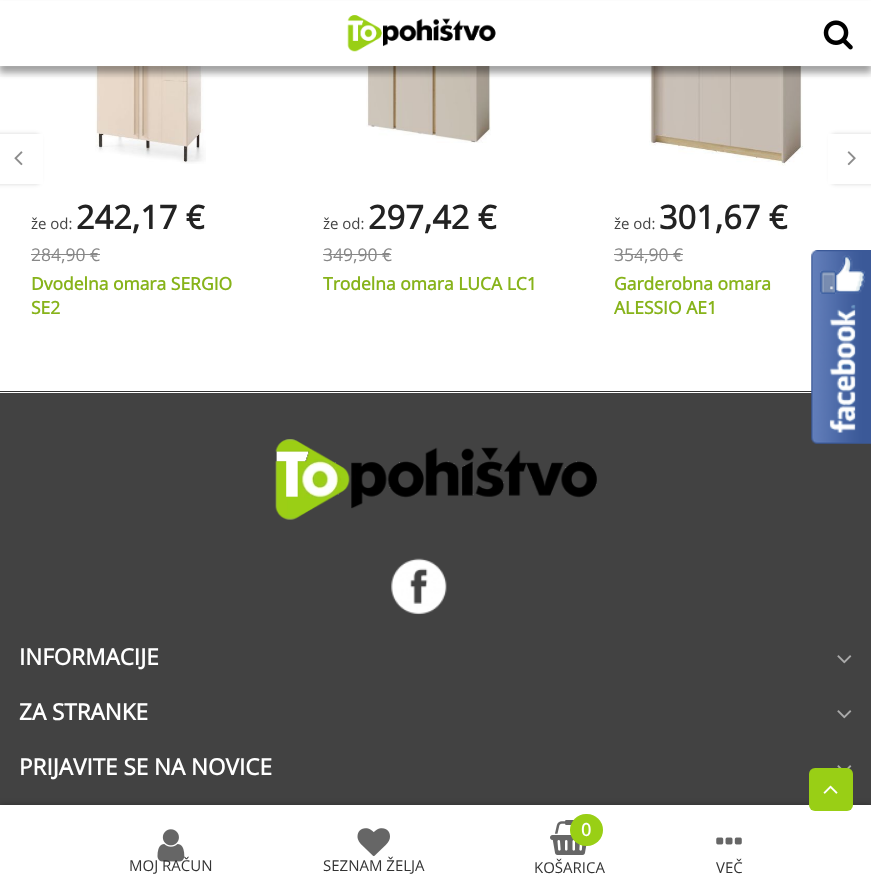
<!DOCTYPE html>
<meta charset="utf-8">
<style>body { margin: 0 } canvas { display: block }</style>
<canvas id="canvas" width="871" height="892"></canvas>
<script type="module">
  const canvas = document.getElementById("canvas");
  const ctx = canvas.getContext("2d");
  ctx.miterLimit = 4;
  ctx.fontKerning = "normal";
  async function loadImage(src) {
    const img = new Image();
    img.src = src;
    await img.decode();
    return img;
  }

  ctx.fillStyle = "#ffffff";
  ctx.fillRect(0, 0, 871, 892);
  ctx.fillStyle = "rgba(50, 50, 50, 0.2)";
  ctx.filter = "blur(2px)";
  ctx.beginPath();
  ctx.roundRect(-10, 134, 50, 50, 4);
  ctx.fill();
  ctx.filter = "none";
  ctx.fillStyle = "#ffffff";
  ctx.fillRect(0, 134, 43, 50);
  ctx.drawImage(await loadImage("img1.png"), 14, 151, 9, 15);
  ctx.fillStyle = "rgba(50, 50, 50, 0.2)";
  ctx.filter = "blur(2px)";
  ctx.beginPath();
  ctx.roundRect(831, 134, 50, 50, 4);
  ctx.fill();
  ctx.filter = "none";
  ctx.fillStyle = "#ffffff";
  ctx.fillRect(828, 134, 43, 50);
  ctx.drawImage(await loadImage("img2.png"), 847, 151, 9, 15);
  ctx.drawImage(await loadImage("img3.png"), 95, 66, 111, 98);
  ctx.font = "15px Open Sans";
  ctx.fillStyle = "#444444";
  ctx.fillText("že od:", 31, 229);
  ctx.font = "bold 32.5px Open Sans";
  ctx.fillStyle = "#222222";
  ctx.fillText("242,17 €", 76, 229);
  ctx.font = "17.5px Open Sans";
  ctx.fillStyle = "#888888";
  ctx.fillText("284,90 €", 31, 261);
  ctx.fillRect(31, 254, 69, 1);
  ctx.font = "bold 17.5px Open Sans";
  ctx.fillStyle = "#87b31a";
  ctx.fillText("Dvodelna omara SERGIO", 31, 290);
  ctx.fillText("SE2", 31, 314);
  ctx.drawImage(await loadImage("img4.png"), 366, 66, 125, 77);
  ctx.font = "15px Open Sans";
  ctx.fillStyle = "#444444";
  ctx.fillText("že od:", 323, 229);
  ctx.font = "bold 32.5px Open Sans";
  ctx.fillStyle = "#222222";
  ctx.fillText("297,42 €", 368, 229);
  ctx.font = "17.5px Open Sans";
  ctx.fillStyle = "#888888";
  ctx.fillText("349,90 €", 323, 261);
  ctx.fillRect(323, 254, 68, 1);
  ctx.font = "bold 17.5px Open Sans";
  ctx.fillStyle = "#87b31a";
  ctx.fillText("Trodelna omara LUCA LC1", 323, 290);
  ctx.drawImage(await loadImage("img5.png"), 649, 66, 154, 100);
  ctx.font = "15px Open Sans";
  ctx.fillStyle = "#444444";
  ctx.fillText("že od:", 614, 229);
  ctx.font = "bold 32.5px Open Sans";
  ctx.fillStyle = "#222222";
  ctx.fillText("301,67 €", 659, 229);
  ctx.font = "17.5px Open Sans";
  ctx.fillStyle = "#888888";
  ctx.fillText("354,90 €", 614, 261);
  ctx.fillRect(614, 254, 69, 1);
  ctx.font = "bold 17.5px Open Sans";
  ctx.fillStyle = "#87b31a";
  ctx.fillText("Garderobna omara", 614, 290);
  ctx.fillText("ALESSIO AE1", 614, 314);
  ctx.fillStyle = "#424242";
  ctx.fillRect(0, 393, 871, 412);
  ctx.fillStyle = "#323232";
  ctx.fillRect(0, 391, 812, 1);
  ctx.drawImage(await loadImage("img6.png"), 811, 250, 60, 194);
  ctx.drawImage(await loadImage("img7.png"), 275, 439, 322, 81);
  ctx.drawImage(await loadImage("img8.png"), 391, 558, 56, 57);
  ctx.font = "bold 22.5px Open Sans";
  ctx.fillStyle = "#ffffff";
  ctx.fillText("INFORMACIJE", 19, 665);
  ctx.drawImage(await loadImage("img9.png"), 837, 655, 15, 9);
  ctx.fillText("ZA STRANKE", 19, 720);
  ctx.drawImage(await loadImage("img9.png"), 837, 710, 15, 9);
  ctx.fillText("PRIJAVITE SE NA NOVICE", 19, 775);
  ctx.drawImage(await loadImage("img10.png"), 837, 765, 15, 4);
  ctx.fillStyle = "rgba(0, 0, 0, 0.3)";
  ctx.filter = "blur(3px)";
  ctx.beginPath();
  ctx.rect(0, 805, 871, 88);
  ctx.fill();
  ctx.filter = "none";
  ctx.fillStyle = "#ffffff";
  ctx.fillRect(0, 805, 871, 87);
  ctx.fillStyle = "#99cf15";
  ctx.beginPath();
  ctx.roundRect(809, 768, 44, 43, 6);
  ctx.fill();
  ctx.drawImage(await loadImage("img11.png"), 823, 785, 15, 9);
  ctx.fillStyle = "rgba(0, 0, 0, 0.3)";
  ctx.filter = "blur(3px)";
  ctx.beginPath();
  ctx.rect(0, 6, 871, 67);
  ctx.fill();
  ctx.filter = "none";
  ctx.fillStyle = "#ffffff";
  ctx.fillRect(0, 1, 871, 65);
  ctx.drawImage(await loadImage("img12.png"), 0, 66, 871, 11);
  ctx.drawImage(await loadImage("img13.png"), 347, 15, 149, 37);
  ctx.drawImage(await loadImage("img14.png"), 823, 20, 30, 30);
  ctx.drawImage(await loadImage("img15.png"), 157, 829, 28, 33);
  ctx.font = "15px Open Sans";
  ctx.fillStyle = "#333333";
  ctx.fillText("MOJ RAČUN", 129, 871);
  ctx.drawImage(await loadImage("img16.png"), 357, 828, 33, 29);
  ctx.fillText("SEZNAM ŽELJA", 323, 871);
  ctx.drawImage(await loadImage("img17.png"), 550, 820, 37, 35);
  ctx.fillStyle = "#99cf15";
  ctx.beginPath();
  ctx.roundRect(570, 814, 33, 32, 16);
  ctx.fill();
  ctx.font = "bold 17.5px Open Sans";
  ctx.fillStyle = "#ffffff";
  ctx.fillText("0", 581, 836);
  ctx.font = "15px Open Sans";
  ctx.fillStyle = "#333333";
  ctx.fillText("KOŠARICA", 534, 873);
  ctx.drawImage(await loadImage("img18.png"), 716, 837, 26, 8);
  ctx.fillText("VEČ", 716, 873);
</script>
